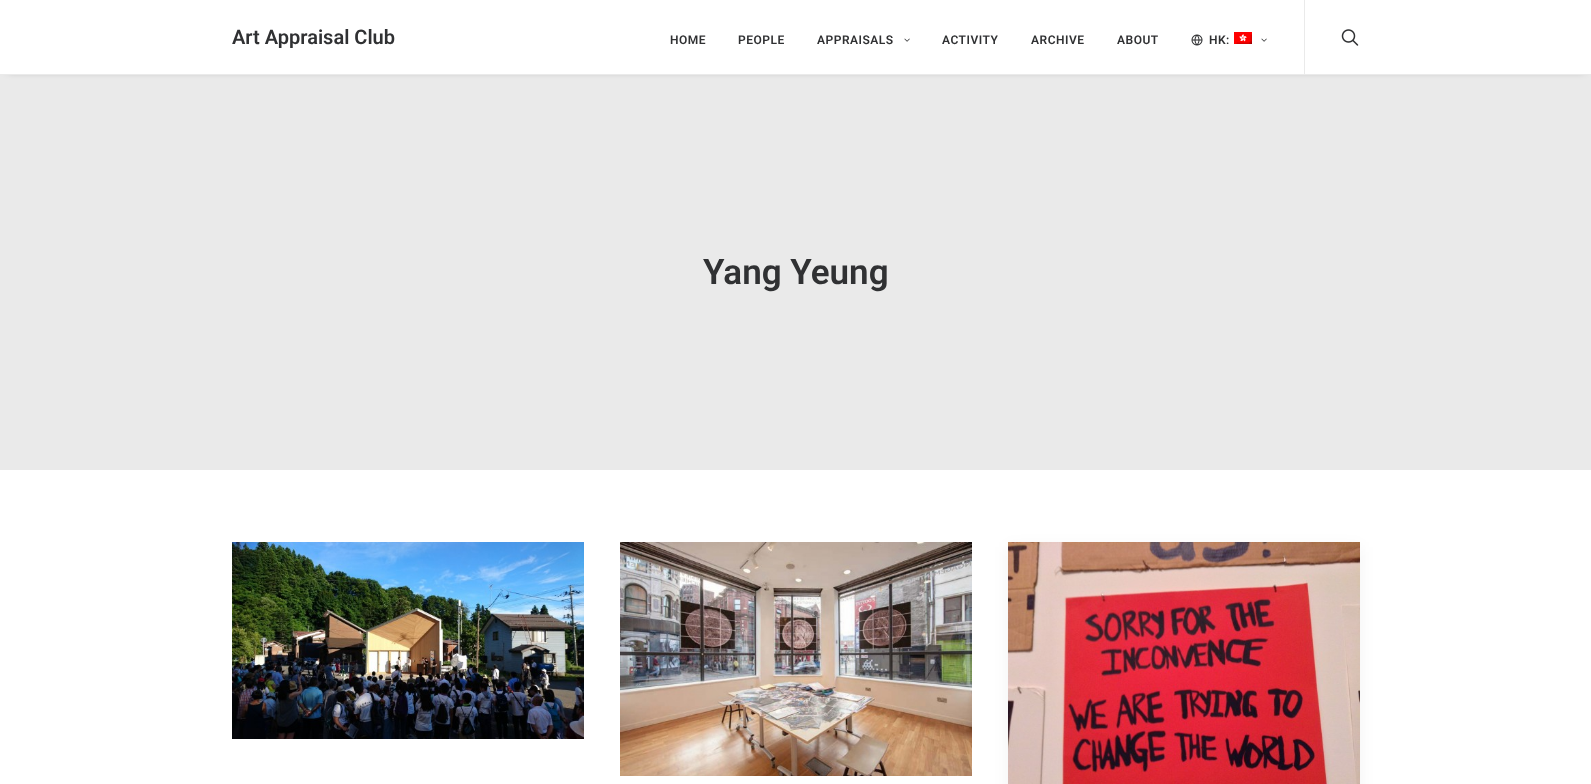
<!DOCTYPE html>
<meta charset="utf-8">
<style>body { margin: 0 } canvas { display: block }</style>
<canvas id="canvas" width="1591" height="784"></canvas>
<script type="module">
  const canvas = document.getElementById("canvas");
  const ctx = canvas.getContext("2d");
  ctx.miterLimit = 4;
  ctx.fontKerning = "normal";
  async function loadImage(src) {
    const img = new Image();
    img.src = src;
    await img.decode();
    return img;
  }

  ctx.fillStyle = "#eaeaea";
  ctx.fillRect(0, 0, 1591, 784);
  ctx.fillStyle = "rgba(0, 0, 0, 0.6)";
  ctx.filter = "blur(5px)";
  ctx.beginPath();
  ctx.rect(8, 14, 1576, 55);
  ctx.fill();
  ctx.filter = "none";
  ctx.fillStyle = "#ffffff";
  ctx.fillRect(0, 0, 1591, 74);
  ctx.fillStyle = "#eaeaea";
  ctx.fillRect(0, 74, 1591, 1);
  ctx.font = "600 20px Roboto";
  ctx.fillStyle = "#303133";
  ctx.fillText("Art Appraisal Club", 232, 44);
  ctx.letterSpacing = "0.5px";
  ctx.font = "600 12px Roboto";
  ctx.fillText("HOME", 670, 44);
  ctx.fillText("PEOPLE", 738, 44);
  ctx.fillText("APPRAISALS", 817, 44);
  ctx.drawImage(await loadImage("img1.png"), 904, 38, 6, 4);
  ctx.fillText("ACTIVITY", 942, 44);
  ctx.fillText("ARCHIVE", 1031, 44);
  ctx.fillText("ABOUT", 1117, 44);
  ctx.drawImage(await loadImage("img2.png"), 1191, 34, 12, 12);
  ctx.fillText("HK:", 1209, 44);
  ctx.drawImage(await loadImage("img3.png"), 1234, 32, 18, 12);
  ctx.drawImage(await loadImage("img1.png"), 1261, 38, 6, 4);
  ctx.fillStyle = "#eaeaea";
  ctx.fillRect(1304, 0, 1, 74);
  ctx.drawImage(await loadImage("img4.png"), 1341, 29, 18, 17);
  ctx.letterSpacing = "0px";
  ctx.font = "600 35px Roboto";
  ctx.fillStyle = "#303133";
  ctx.fillText("Yang Yeung", 703, 284);
  ctx.fillStyle = "#ffffff";
  ctx.fillRect(0, 470, 1591, 314);
  ctx.drawImage(await loadImage("img5.png"), 232, 542, 352, 197);
  ctx.drawImage(await loadImage("img6.png"), 620, 542, 352, 234);
  ctx.fillStyle = "rgba(0, 0, 0, 0.05)";
  ctx.filter = "blur(7.5px)";
  ctx.beginPath();
  ctx.rect(1008, 547, 352, 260);
  ctx.fill();
  ctx.filter = "none";
  ctx.drawImage(await loadImage("img7.png"), 1008, 542, 352, 242);
</script>
